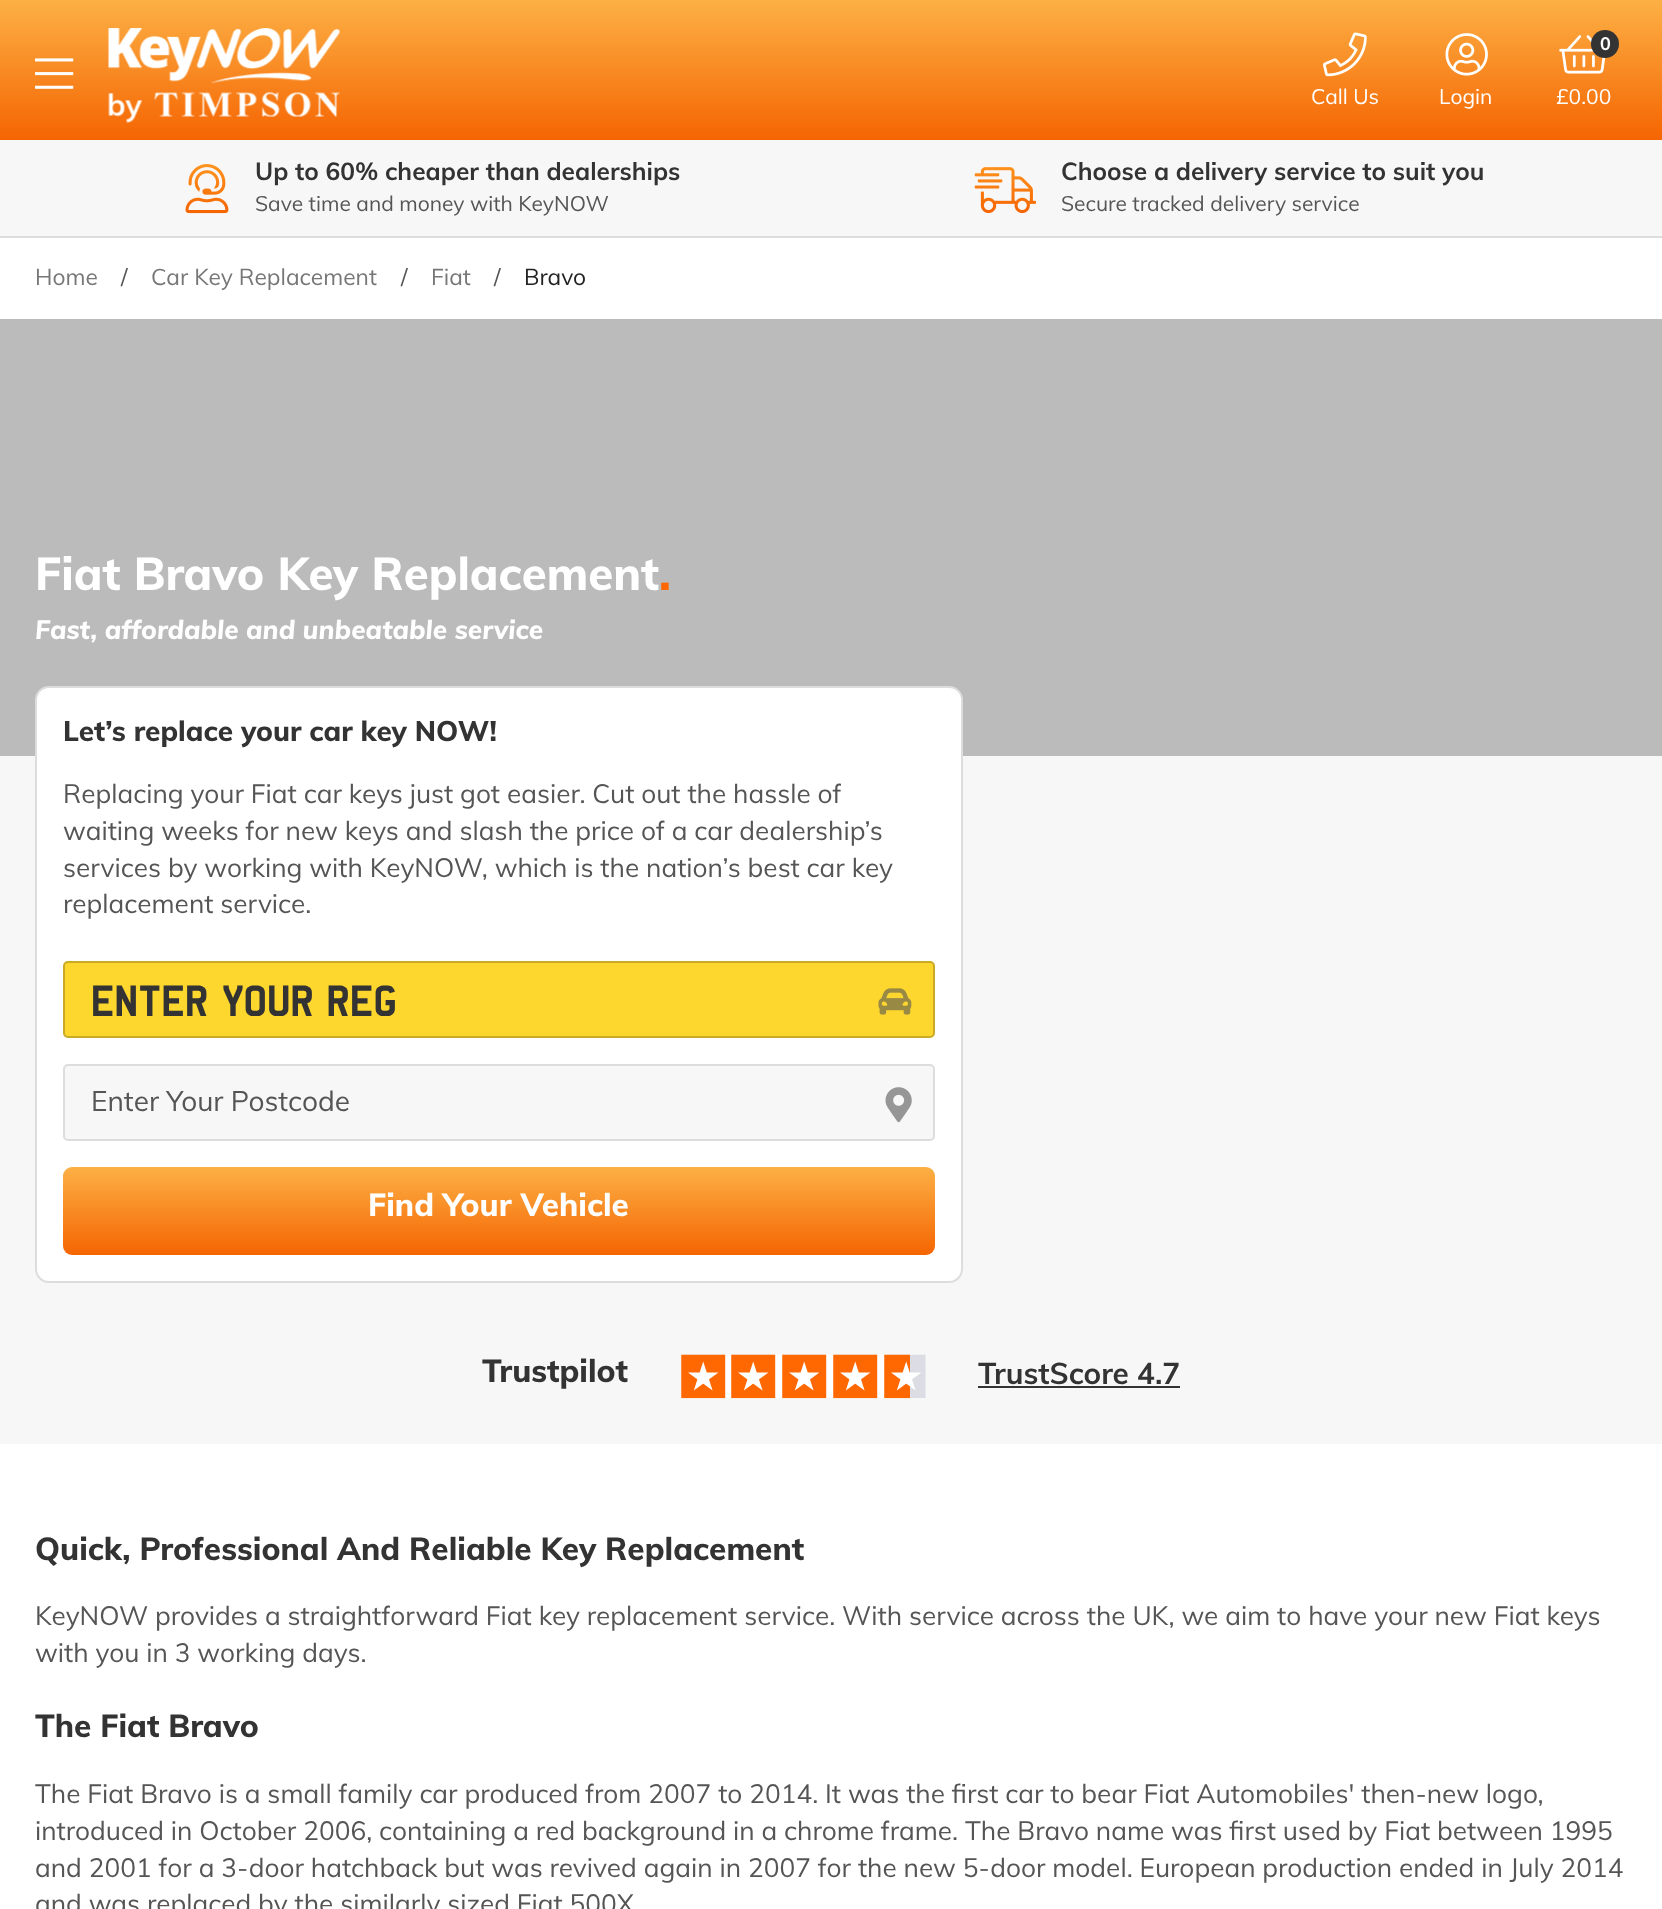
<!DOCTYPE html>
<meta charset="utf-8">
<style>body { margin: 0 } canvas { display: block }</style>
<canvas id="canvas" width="1662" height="1909"></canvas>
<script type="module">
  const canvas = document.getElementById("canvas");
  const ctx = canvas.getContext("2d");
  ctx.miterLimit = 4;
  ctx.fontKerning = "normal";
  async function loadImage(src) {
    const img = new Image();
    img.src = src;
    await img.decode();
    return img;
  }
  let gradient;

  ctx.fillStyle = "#ffffff";
  ctx.fillRect(0, 0, 1662, 1909);
  gradient = ctx.createLinearGradient(831, 140, 831, 0);
  gradient.addColorStop(0, "#f56502");
  gradient.addColorStop(1, "#fcb045");
  ctx.fillStyle = gradient;
  ctx.fillRect(0, 0, 1662, 140);
  ctx.drawImage(await loadImage("img1.png"), 35, 58, 39, 31);
  ctx.drawImage(await loadImage("img2.png"), 108, 28, 232, 95);
  ctx.drawImage(await loadImage("img3.png"), 1559, 35, 47, 39);
  ctx.fillStyle = "#333333";
  ctx.beginPath();
  ctx.arc(1605, 44, 14, 0, Math.PI * 2);
  ctx.fill();
  ctx.font = "bold 18px Muli";
  ctx.fillStyle = "#ffffff";
  ctx.fillText("0", 1600, 50);
  ctx.font = "21px Muli";
  ctx.fillText("£0.00", 1556, 104);
  ctx.drawImage(await loadImage("img4.png"), 1323, 32, 44, 45);
  ctx.fillText("Call Us", 1311, 104);
  ctx.drawImage(await loadImage("img5.png"), 1445, 33, 43, 43);
  ctx.fillText("Login", 1439, 104);
  ctx.fillStyle = "#f7f7f7";
  ctx.fillRect(0, 140, 1662, 96);
  ctx.fillStyle = "#dddddd";
  ctx.fillRect(0, 236, 1662, 2);
  ctx.drawImage(await loadImage("img6.png"), 185, 164, 44, 50);
  ctx.font = "bold 24.5px Muli";
  ctx.fillStyle = "#333333";
  ctx.fillText("Up to 60% cheaper than dealerships", 255, 180);
  ctx.font = "21px Muli";
  ctx.fillStyle = "#555555";
  ctx.fillText("Save time and money with KeyNOW", 255, 211);
  ctx.drawImage(await loadImage("img7.png"), 974, 167, 62, 47);
  ctx.font = "bold 24.5px Muli";
  ctx.fillStyle = "#333333";
  ctx.fillText("Choose a delivery service to suit you", 1061, 180);
  ctx.font = "21px Muli";
  ctx.fillStyle = "#555555";
  ctx.fillText("Secure tracked delivery service", 1061, 211);
  ctx.font = "22.75px Muli";
  ctx.fillStyle = "#777777";
  ctx.fillText("Home", 35, 285);
  ctx.fillStyle = "#555555";
  ctx.fillText("/", 121, 285);
  ctx.fillStyle = "#777777";
  ctx.fillText("Car Key Replacement", 151, 285);
  ctx.fillStyle = "#555555";
  ctx.fillText("/", 401, 285);
  ctx.fillStyle = "#777777";
  ctx.fillText("Fiat", 431, 285);
  ctx.fillStyle = "#555555";
  ctx.fillText("/", 494, 285);
  ctx.fillStyle = "#222222";
  ctx.fillText("Bravo", 524, 285);
  ctx.fillStyle = "#bbbbbb";
  ctx.fillRect(0, 319, 1662, 437);
  ctx.wordSpacing = "0.5px";
  ctx.font = "800 45.5px Muli";
  ctx.fillStyle = "#ffffff";
  ctx.fillText("Fiat Bravo Key Replacement", 35, 590);
  ctx.wordSpacing = "0px";
  ctx.fillStyle = "#ff6800";
  ctx.fillText(".", 659, 590);
  ctx.font = "italic 800 26.25px Muli";
  ctx.fillStyle = "#ffffff";
  ctx.fillText("Fast, affordable and unbeatable service", 35, 639);
  ctx.fillStyle = "#f7f7f7";
  ctx.fillRect(0, 756, 1662, 688);
  ctx.fillStyle = "#ffffff";
  ctx.beginPath();
  ctx.roundRect(36, 687, 926, 595, 13);
  ctx.fill();
  ctx.strokeStyle = "#dddddd";
  ctx.lineWidth = 2;
  ctx.stroke();
  ctx.font = "800 28px Muli";
  ctx.fillStyle = "#333333";
  ctx.fillText("Let’s replace your car key NOW!", 63, 741);
  ctx.font = "26.25px Muli";
  ctx.fillStyle = "#555555";
  ctx.fillText("Replacing your Fiat car keys just got easier. Cut out the hassle of", 63, 803);
  ctx.fillText("waiting weeks for new keys and slash the price of a car dealership’s", 63, 840);
  ctx.fillText("services by working with KeyNOW, which is the nation’s best car key", 63, 877);
  ctx.fillText("replacement service.", 63, 913);
  ctx.fillStyle = "#fdd62e";
  ctx.beginPath();
  ctx.roundRect(64, 962, 870, 75, 4);
  ctx.fill();
  ctx.strokeStyle = "#caab25";
  ctx.stroke();
  ctx.font = "bold 38.5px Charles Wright";
  ctx.fillStyle = "#333333";
  ctx.fillText("ENTER YOUR REG", 91, 1016);
  ctx.drawImage(await loadImage("img8.png"), 878, 988, 34, 27);
  ctx.fillStyle = "#f7f7f7";
  ctx.beginPath();
  ctx.roundRect(64, 1065, 870, 75, 4);
  ctx.fill();
  ctx.strokeStyle = "#dddddd";
  ctx.stroke();
  ctx.font = "28px Muli";
  ctx.fillStyle = "#555555";
  ctx.fillText("Enter Your Postcode", 91, 1111);
  ctx.drawImage(await loadImage("img9.png"), 885, 1087, 27, 36);
  gradient = ctx.createLinearGradient(499, 1255, 499, 1167);
  gradient.addColorStop(0, "#f56502");
  gradient.addColorStop(1, "#fcb045");
  ctx.fillStyle = gradient;
  ctx.beginPath();
  ctx.roundRect(63, 1167, 872, 88, 9);
  ctx.fill();
  ctx.font = "800 31.5px Muli";
  ctx.fillStyle = "#ffffff";
  ctx.fillText("Find Your Vehicle", 368, 1216);
  ctx.fillStyle = "#333333";
  ctx.fillText("Trustpilot", 482, 1382);
  ctx.drawImage(await loadImage("img10.png"), 681, 1354, 245, 44);
  ctx.drawImage(await loadImage("img11.png"), 681, 1354, 229, 45);
  ctx.font = "bold 29.75px Muli";
  ctx.fillText("TrustScore 4.7", 978, 1384);
  ctx.fillRect(978, 1386, 202, 2);
  ctx.font = "800 31.5px Muli";
  ctx.fillText("Quick, Professional And Reliable Key Replacement", 35, 1560);
  ctx.font = "26.25px Muli";
  ctx.fillStyle = "#555555";
  ctx.fillText("KeyNOW provides a straightforward Fiat key replacement service. With service across the UK, we aim to have your new Fiat keys", 35, 1625);
  ctx.fillText("with you in 3 working days.", 35, 1662);
  ctx.font = "800 31.5px Muli";
  ctx.fillStyle = "#333333";
  ctx.fillText("The Fiat Bravo", 35, 1737);
  ctx.font = "26.25px Muli";
  ctx.fillStyle = "#555555";
  ctx.fillText("The Fiat Bravo is a small family car produced from 2007 to 2014. It was the first car to bear Fiat Automobiles' then-new logo,", 35, 1803);
  ctx.fillText("introduced in October 2006, containing a red background in a chrome frame. The Bravo name was first used by Fiat between 1995", 35, 1840);
  ctx.fillText("and 2001 for a 3-door hatchback but was revived again in 2007 for the new 5-door model. European production ended in July 2014", 35, 1877);
  ctx.fillText("and was replaced by the similarly sized Fiat 500X", 35, 1913);
</script>
